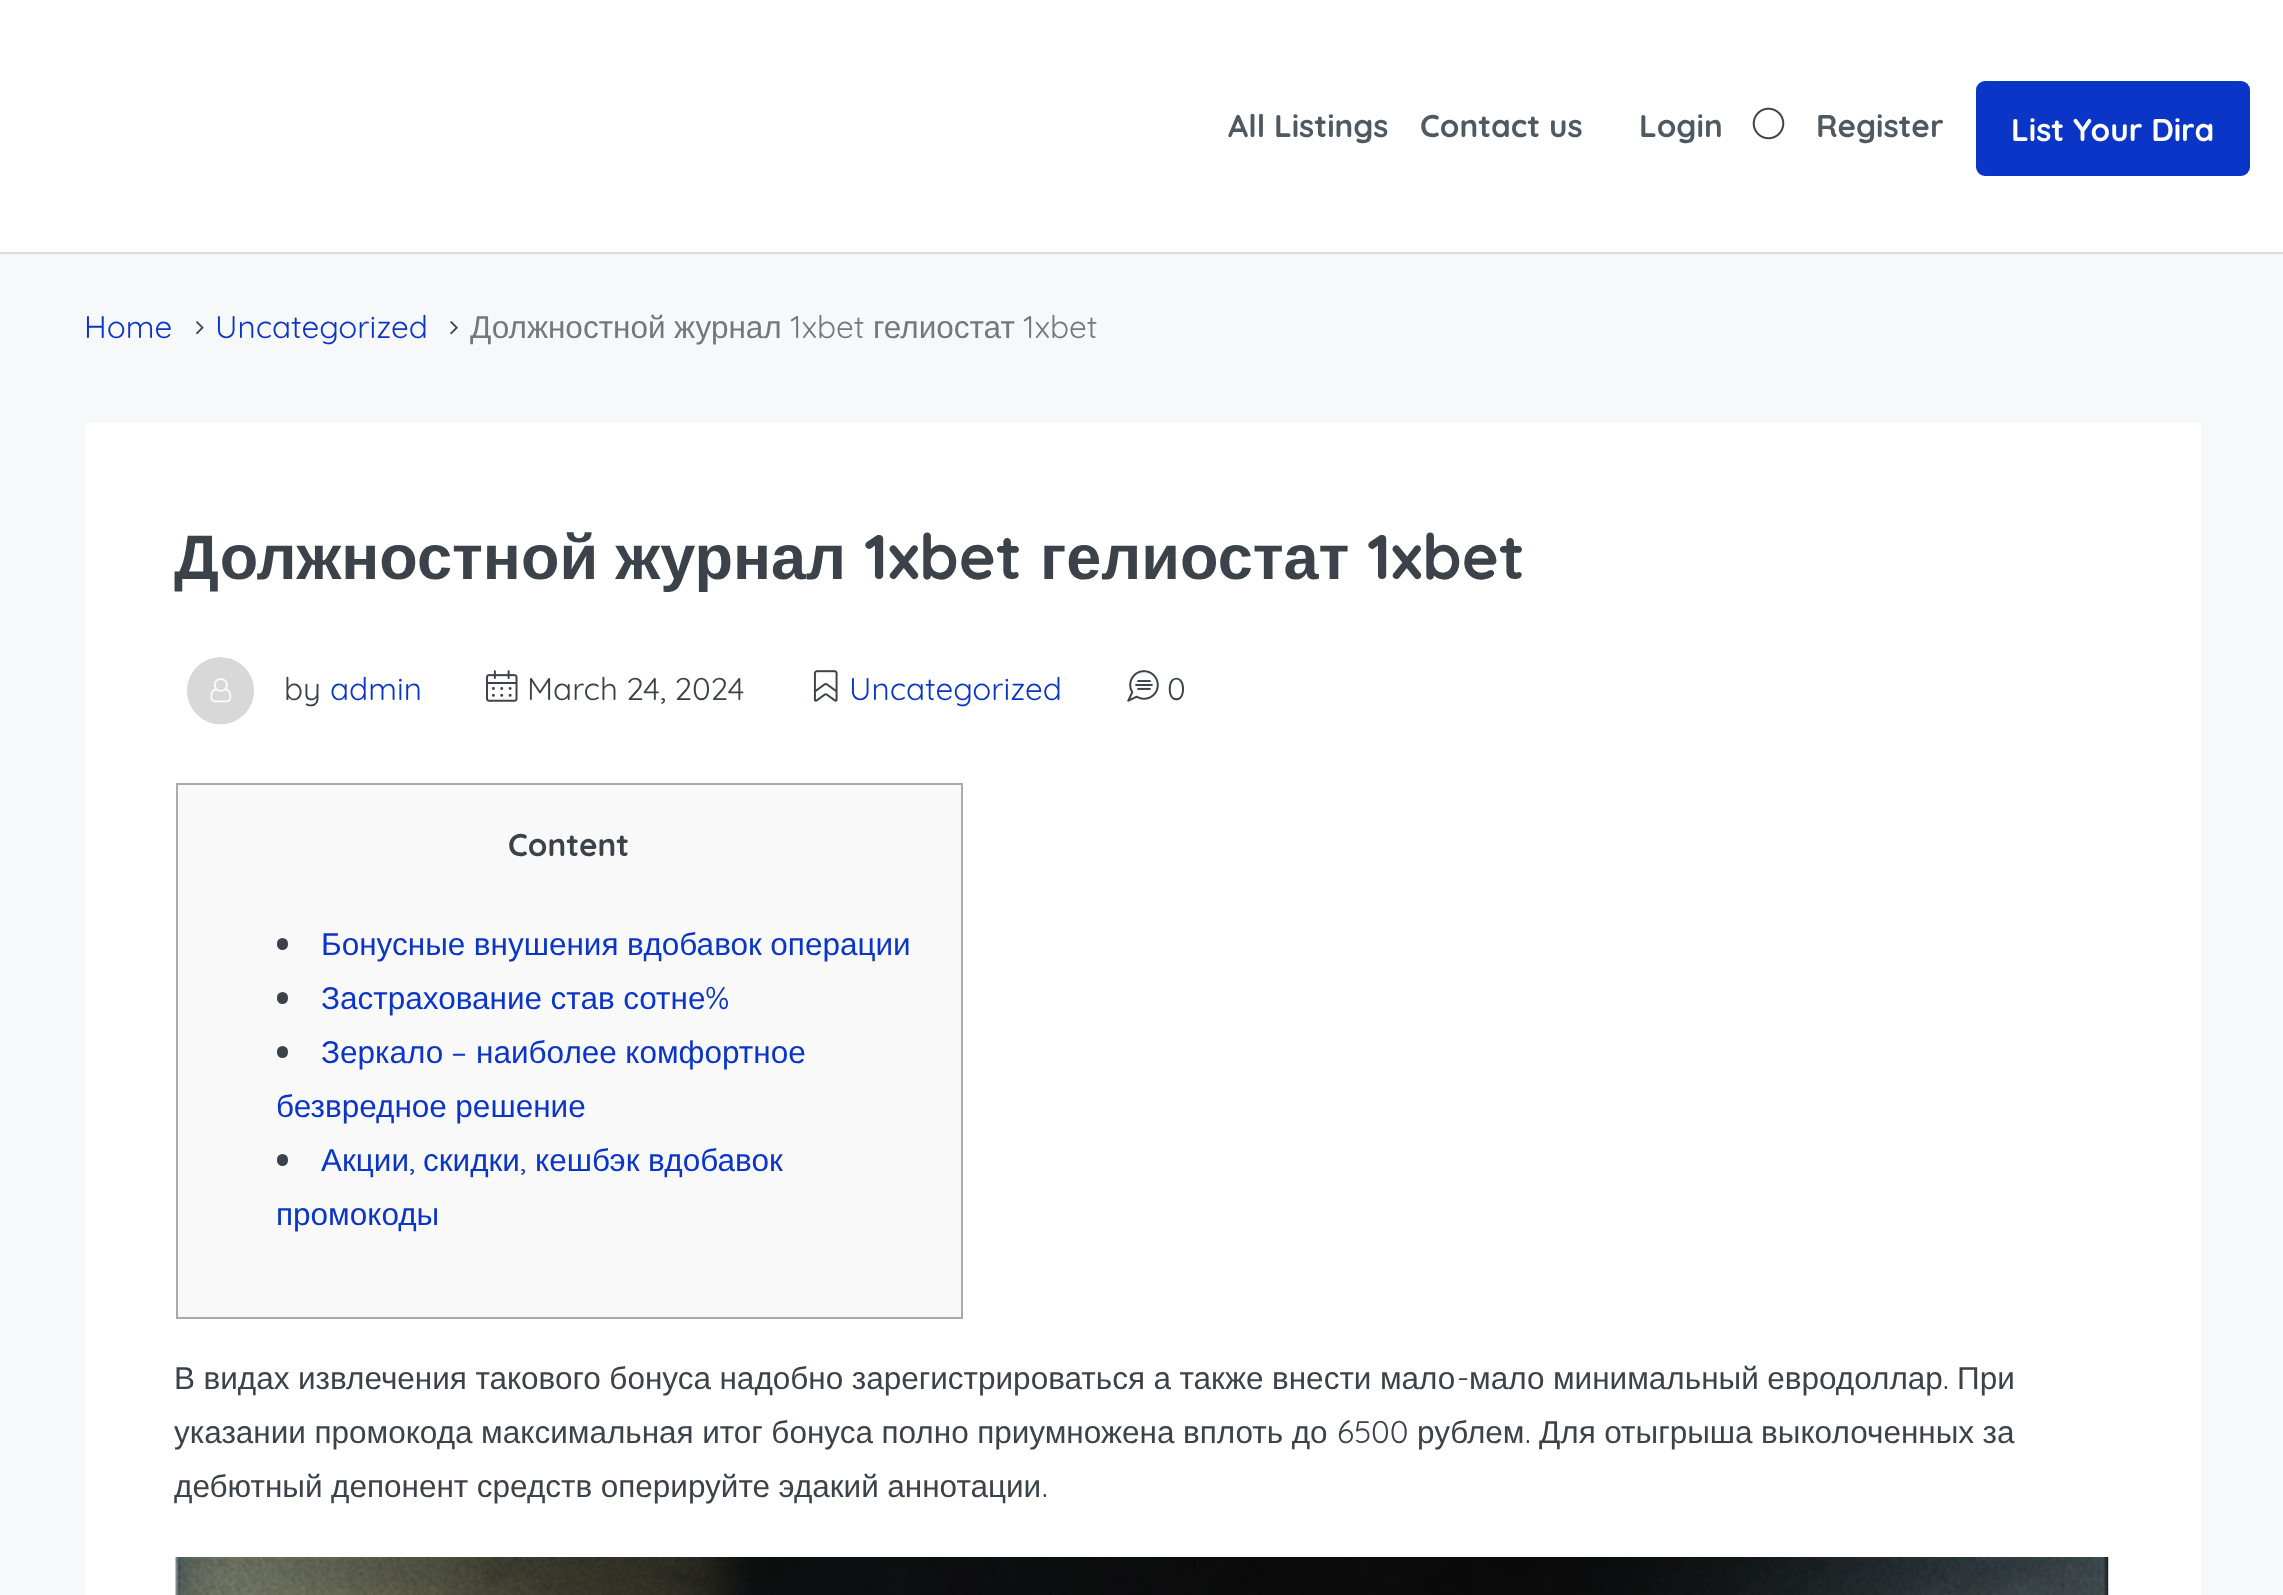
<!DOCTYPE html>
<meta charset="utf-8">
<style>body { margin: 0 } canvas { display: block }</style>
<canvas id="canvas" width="2283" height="1595"></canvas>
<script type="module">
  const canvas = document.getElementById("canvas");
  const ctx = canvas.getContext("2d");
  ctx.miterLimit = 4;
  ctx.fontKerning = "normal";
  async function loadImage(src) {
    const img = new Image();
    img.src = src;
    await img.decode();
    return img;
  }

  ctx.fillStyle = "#f7f8f9";
  ctx.fillRect(0, 0, 2283, 1595);
  ctx.fillStyle = "#ffffff";
  ctx.fillRect(0, 0, 2283, 252);
  ctx.fillStyle = "#d8dce1";
  ctx.fillRect(0, 252, 2283, 2);
  ctx.font = "bold 31.5px Quicksand";
  ctx.fillStyle = "#4f5962";
  ctx.fillText("All Listings", 1228, 137);
  ctx.fillText("Contact us", 1420, 137);
  ctx.fillText("Login", 1639, 137);
  ctx.drawImage(await loadImage("img1.png"), 1752, 107, 33, 33);
  ctx.fillText("Register", 1816, 137);
  ctx.fillStyle = "#0b35c6";
  ctx.beginPath();
  ctx.roundRect(1977, 82, 272, 93, 8);
  ctx.fill();
  ctx.strokeStyle = "#0b35c6";
  ctx.lineWidth = 2;
  ctx.stroke();
  ctx.fillStyle = "#ffffff";
  ctx.fillText("List Your Dira", 2011, 141);
  ctx.font = "31.5px Quicksand";
  ctx.fillStyle = "#0b35c6";
  ctx.fillText("Home", 84, 338);
  ctx.drawImage(await loadImage("img2.png"), 196, 321, 8, 14);
  ctx.fillText("Uncategorized", 215, 338);
  ctx.drawImage(await loadImage("img3.png"), 450, 321, 8, 14);
  ctx.wordSpacing = "-0.25px";
  ctx.font = "31.5px Liberation Sans";
  ctx.fillStyle = "#777777";
  ctx.fillText("Должностной журнал", 470, 338);
  ctx.wordSpacing = "0px";
  ctx.font = "31.5px Quicksand";
  ctx.fillText("1xbet", 790, 338);
  ctx.font = "31.5px Liberation Sans";
  ctx.fillText("гелиостат", 873, 338);
  ctx.font = "31.5px Quicksand";
  ctx.fillText("1xbet", 1023, 338);
  ctx.fillStyle = "#ffffff";
  ctx.fillRect(86, 423, 2115, 1172);
  ctx.font = "bold 63px Liberation Sans";
  ctx.fillStyle = "#3b4249";
  ctx.fillText("Должностной журнал", 174, 579);
  ctx.font = "bold 63px Quicksand";
  ctx.fillText("1xbet", 864, 579);
  ctx.font = "bold 63px Liberation Sans";
  ctx.fillText("гелиостат", 1040, 579);
  ctx.font = "bold 63px Quicksand";
  ctx.fillText("1xbet", 1367, 579);
  ctx.drawImage(await loadImage("img4.png"), 187, 657, 67, 68);
  ctx.font = "31.5px Quicksand";
  ctx.fillText("by", 284, 700);
  ctx.fillStyle = "#0b35c6";
  ctx.fillText("admin", 330, 700);
  ctx.drawImage(await loadImage("img5.png"), 486, 670, 32, 32);
  ctx.fillStyle = "#3b4249";
  ctx.fillText("March 24, 2024", 527, 700);
  ctx.drawImage(await loadImage("img6.png"), 813, 670, 25, 32);
  ctx.fillStyle = "#0b35c6";
  ctx.fillText("Uncategorized", 849, 700);
  ctx.drawImage(await loadImage("img7.png"), 1127, 670, 32, 32);
  ctx.fillStyle = "#3b4249";
  ctx.fillText("0", 1167, 700);
  ctx.fillStyle = "#f9f9f9";
  ctx.beginPath();
  ctx.rect(177, 784, 785, 534);
  ctx.fill();
  ctx.strokeStyle = "#aaaaaa";
  ctx.stroke();
  ctx.font = "bold 31.5px Quicksand";
  ctx.fillStyle = "#3b4249";
  ctx.fillText("Content", 508, 856);
  ctx.beginPath();
  ctx.roundRect(277, 938, 11, 12, 5.5);
  ctx.fill();
  ctx.wordSpacing = "-0.25px";
  ctx.font = "31.5px Liberation Sans";
  ctx.fillStyle = "#0b35c6";
  ctx.fillText("Бонусные внушения вдобавок операции", 321, 955);
  ctx.fillStyle = "#3b4249";
  ctx.beginPath();
  ctx.roundRect(277, 992, 11, 12, 5.5);
  ctx.fill();
  ctx.fillStyle = "#0b35c6";
  ctx.fillText("Застрахование став сотне", 321, 1009);
  ctx.wordSpacing = "0px";
  ctx.font = "31.5px Quicksand";
  ctx.fillText("%", 705, 1009);
  ctx.fillStyle = "#3b4249";
  ctx.beginPath();
  ctx.roundRect(277, 1046, 11, 12, 5.5);
  ctx.fill();
  ctx.font = "31.5px Liberation Sans";
  ctx.fillStyle = "#0b35c6";
  ctx.fillText("Зеркало", 321, 1063);
  ctx.font = "31.5px Quicksand";
  ctx.fillText("–", 451, 1063);
  ctx.wordSpacing = "-0.25px";
  ctx.font = "31.5px Liberation Sans";
  ctx.fillText("наиболее комфортное", 476, 1063);
  ctx.fillText("безвредное решение", 276, 1117);
  ctx.fillStyle = "#3b4249";
  ctx.beginPath();
  ctx.roundRect(277, 1154, 11, 12, 5.5);
  ctx.fill();
  ctx.wordSpacing = "0px";
  ctx.fillStyle = "#0b35c6";
  ctx.fillText("Акции", 321, 1171);
  ctx.font = "31.5px Quicksand";
  ctx.fillText(",", 409, 1171);
  ctx.font = "31.5px Liberation Sans";
  ctx.fillText("скидки", 423, 1171);
  ctx.font = "31.5px Quicksand";
  ctx.fillText(",", 520, 1171);
  ctx.wordSpacing = "-0.25px";
  ctx.font = "31.5px Liberation Sans";
  ctx.fillText("кешбэк вдобавок", 535, 1171);
  ctx.wordSpacing = "0px";
  ctx.fillText("промокоды", 276, 1225);
  ctx.wordSpacing = "-0.25px";
  ctx.fillStyle = "#3b4249";
  ctx.fillText("В видах извлечения такового бонуса надобно зарегистрироваться а также внести мало", 174, 1389);
  ctx.wordSpacing = "0px";
  ctx.font = "31.5px Quicksand";
  ctx.fillText("-", 1457, 1389);
  ctx.wordSpacing = "-0.25px";
  ctx.font = "31.5px Liberation Sans";
  ctx.fillText("мало минимальный евродоллар", 1469, 1389);
  ctx.wordSpacing = "0px";
  ctx.fillText("При", 1957, 1389);
  ctx.font = "31.5px Quicksand";
  ctx.fillText(".", 1943, 1389);
  ctx.wordSpacing = "-0.25px";
  ctx.font = "31.5px Liberation Sans";
  ctx.fillText("указании промокода максимальная итог бонуса полно приумножена вплоть до", 174, 1443);
  ctx.wordSpacing = "0px";
  ctx.font = "31.5px Quicksand";
  ctx.fillText("6500", 1337, 1443);
  ctx.font = "31.5px Liberation Sans";
  ctx.fillText("рублем", 1417, 1443);
  ctx.font = "31.5px Quicksand";
  ctx.fillText(".", 1525, 1443);
  ctx.wordSpacing = "-0.25px";
  ctx.font = "31.5px Liberation Sans";
  ctx.fillText("Для отыгрыша выколоченных за", 1539, 1443);
  ctx.fillText("дебютный депонент средств оперируйте эдакий аннотации", 174, 1497);
  ctx.wordSpacing = "0px";
  ctx.font = "31.5px Quicksand";
  ctx.fillText(".", 1042, 1497);
  ctx.drawImage(await loadImage("img8.png"), 175, 1557, 1934, 38);
</script>
